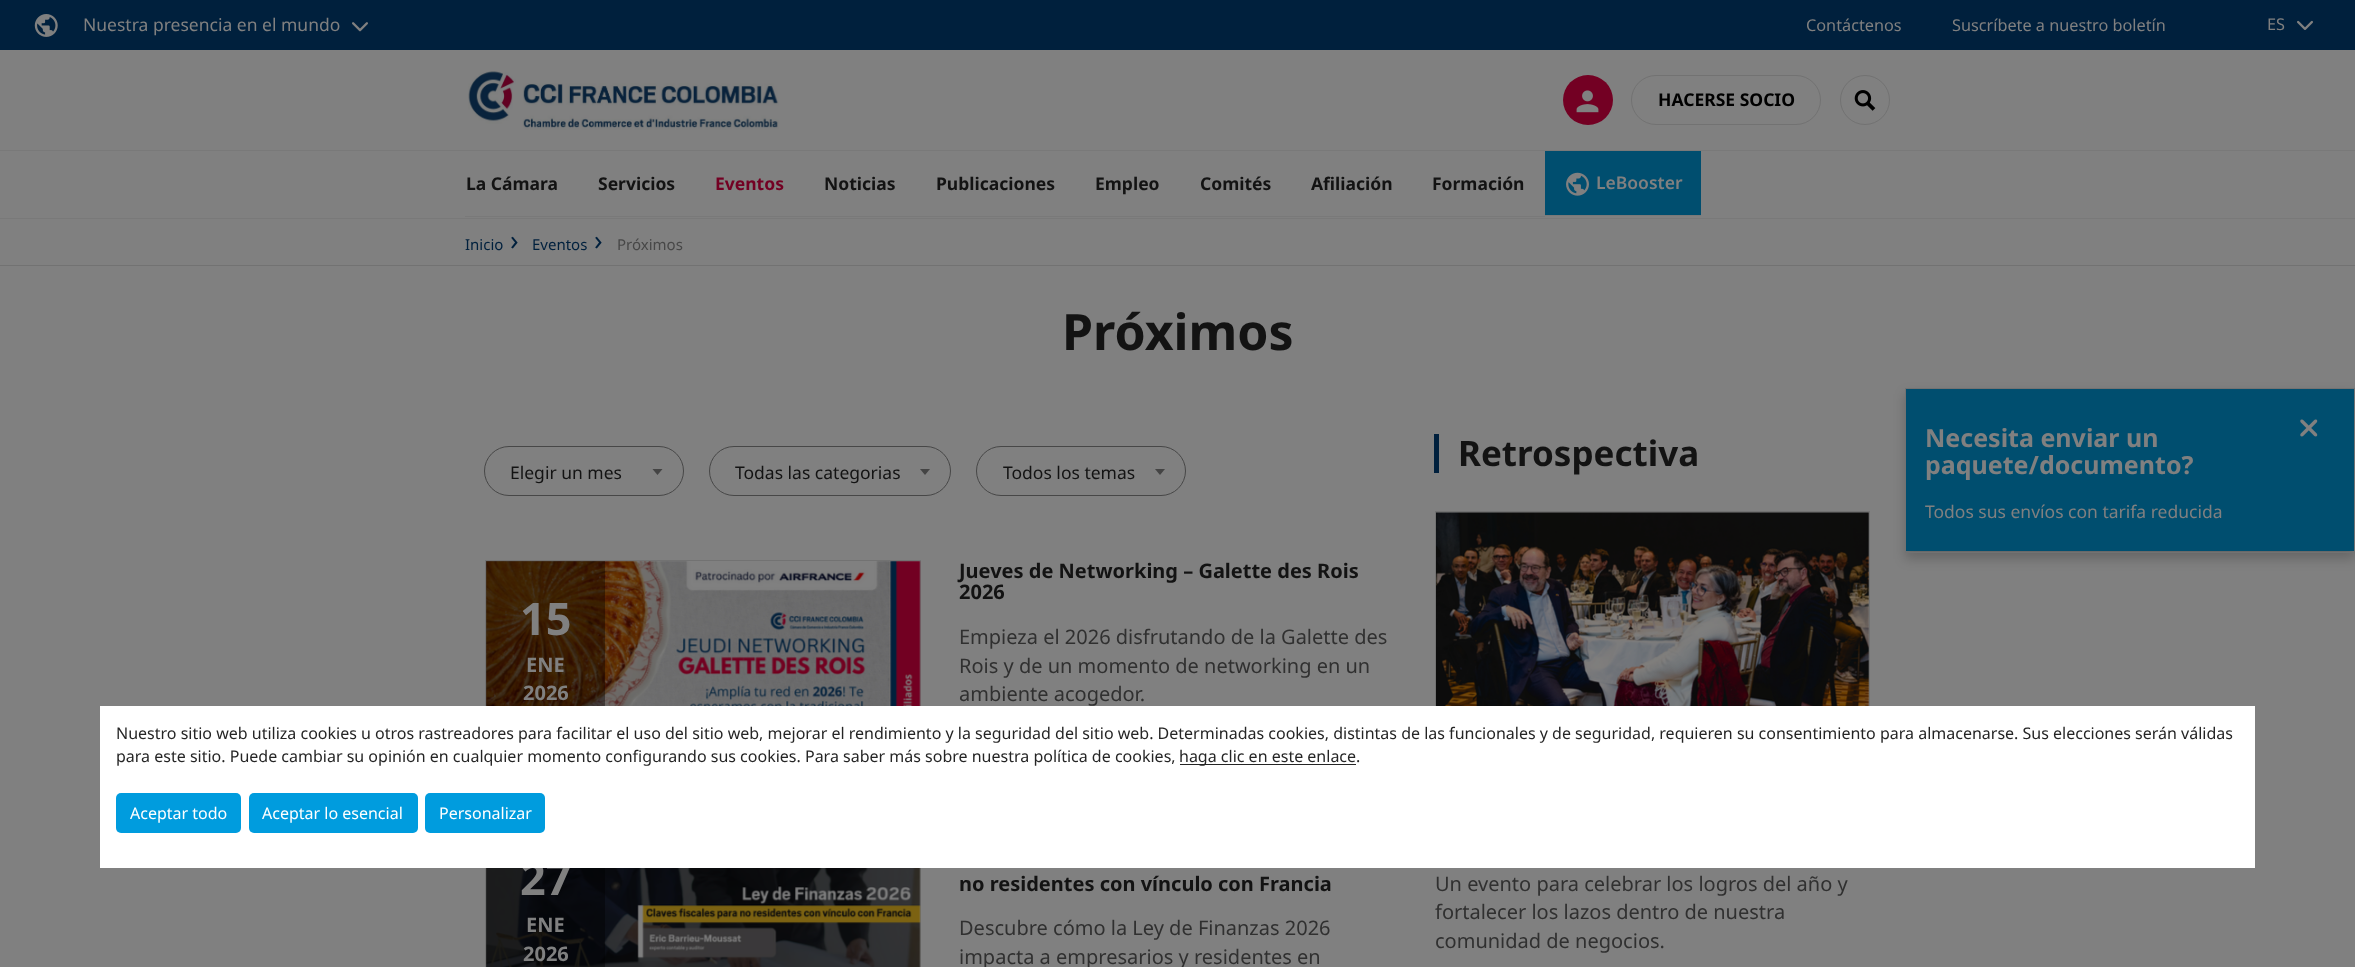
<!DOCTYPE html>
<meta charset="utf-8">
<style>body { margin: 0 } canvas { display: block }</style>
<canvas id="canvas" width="2355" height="967"></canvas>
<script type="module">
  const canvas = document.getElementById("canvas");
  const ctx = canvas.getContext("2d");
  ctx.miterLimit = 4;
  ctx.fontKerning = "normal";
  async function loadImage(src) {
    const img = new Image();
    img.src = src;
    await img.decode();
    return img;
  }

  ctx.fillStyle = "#808080";
  ctx.fillRect(0, 0, 2355, 967);
  ctx.fillStyle = "#797979";
  ctx.fillRect(0, 218, 2355, 1);
  ctx.fillStyle = "#00203d";
  ctx.fillRect(0, 0, 2355, 50);
  ctx.drawImage(await loadImage("img1.png"), 34, 14, 24, 23);
  ctx.font = "17.5px Noto Sans";
  ctx.fillStyle = "#808080";
  ctx.fillText("Nuestra presencia en el mundo", 83, 31);
  ctx.drawImage(await loadImage("img2.png"), 352, 22, 16, 10);
  ctx.font = "16.25px Noto Sans";
  ctx.fillText("Contáctenos", 1806, 31);
  ctx.fillText("Suscríbete a nuestro boletín", 1952, 31);
  ctx.fillText("ES", 2267, 30);
  ctx.drawImage(await loadImage("img3.png"), 2297, 20, 16, 10);
  ctx.fillStyle = "#797979";
  ctx.fillRect(0, 150, 2355, 1);
  ctx.drawImage(await loadImage("img4.png"), 468, 71, 311, 59);
  ctx.fillStyle = "#730023";
  ctx.beginPath();
  ctx.arc(1588, 100, 25, 0, Math.PI * 2);
  ctx.fill();
  ctx.drawImage(await loadImage("img5.png"), 1576, 90, 23, 23);
  ctx.beginPath();
  ctx.roundRect(1631.5, 75.5, 189, 49, 24.5);
  ctx.strokeStyle = "#727272";
  ctx.stroke();
  ctx.font = "bold 17.5px Noto Sans";
  ctx.fillStyle = "#000000";
  ctx.fillText("HACERSE SOCIO", 1658, 106);
  ctx.beginPath();
  ctx.arc(1865, 100, 24.5, 0, Math.PI * 2);
  ctx.stroke();
  ctx.drawImage(await loadImage("img6.png"), 1854, 90, 22, 21);
  ctx.fillStyle = "#797979";
  ctx.fillRect(465, 216, 1080, 1);
  ctx.fillStyle = "#131313";
  ctx.fillText("La Cámara", 466, 190);
  ctx.fillText("Servicios", 598, 190);
  ctx.fillStyle = "#730023";
  ctx.fillText("Eventos", 715, 190);
  ctx.fillStyle = "#131313";
  ctx.fillText("Noticias", 824, 190);
  ctx.fillText("Publicaciones", 936, 190);
  ctx.fillText("Empleo", 1095, 190);
  ctx.fillText("Comités", 1200, 190);
  ctx.fillText("Afiliación", 1311, 190);
  ctx.fillText("Formación", 1432, 190);
  ctx.fillStyle = "#797979";
  ctx.fillRect(1545, 215, 156, 1);
  ctx.fillStyle = "#004e6f";
  ctx.fillRect(1545, 151, 156, 64);
  ctx.drawImage(await loadImage("img7.png"), 1566, 172, 23, 24);
  ctx.font = "600 17.5px Noto Sans";
  ctx.fillStyle = "#808080";
  ctx.fillText("LeBooster", 1596, 189);
  ctx.fillStyle = "#727272";
  ctx.fillRect(0, 265, 2355, 1);
  ctx.font = "15px Noto Sans";
  ctx.fillStyle = "#00203d";
  ctx.fillText("Inicio", 465, 250);
  ctx.font = "28px Noto Sans";
  ctx.fillText("›", 510, 250);
  ctx.font = "15px Noto Sans";
  ctx.fillText("Eventos", 532, 250);
  ctx.font = "28px Noto Sans";
  ctx.fillText("›", 594, 250);
  ctx.font = "15px Noto Sans";
  ctx.fillStyle = "#474747";
  ctx.fillText("Próximos", 617, 250);
  ctx.font = "bold 50px Noto Sans";
  ctx.fillStyle = "#131313";
  ctx.fillText("Próximos", 1062, 350);
  ctx.beginPath();
  ctx.roundRect(484.5, 446.5, 199, 49, 24.5);
  ctx.strokeStyle = "#474747";
  ctx.stroke();
  ctx.font = "17.5px Noto Sans";
  ctx.fillText("Elegir un mes", 510, 479);
  ctx.fillStyle = "#444444";
  ctx.beginPath();
  ctx.moveTo(652.5, 469);
  ctx.lineTo(662.5, 469);
  ctx.lineTo(657.5, 475);
  ctx.closePath();
  ctx.fill();
  ctx.beginPath();
  ctx.roundRect(709.5, 446.5, 241, 49, 24.5);
  ctx.stroke();
  ctx.fillStyle = "#131313";
  ctx.fillText("Todas las categorias", 735, 479);
  ctx.fillStyle = "#444444";
  ctx.beginPath();
  ctx.moveTo(920, 469);
  ctx.lineTo(930, 469);
  ctx.lineTo(925, 475);
  ctx.closePath();
  ctx.fill();
  ctx.beginPath();
  ctx.roundRect(976.5, 446.5, 209, 49, 24.5);
  ctx.stroke();
  ctx.fillStyle = "#131313";
  ctx.fillText("Todos los temas", 1003, 479);
  ctx.fillStyle = "#444444";
  ctx.beginPath();
  ctx.moveTo(1155, 469);
  ctx.lineTo(1165, 469);
  ctx.lineTo(1160, 475);
  ctx.closePath();
  ctx.fill();
  ctx.strokeStyle = "#727272";
  ctx.strokeRect(485.5, 560.5, 435, 229);
  ctx.drawImage(await loadImage("img8.png"), 486, 561, 435, 145);
  ctx.fillStyle = "rgba(0, 0, 0, 0.4)";
  ctx.fillRect(486, 561, 119, 145);
  ctx.font = "bold 45px Noto Sans";
  ctx.fillStyle = "#808080";
  ctx.fillText("15", 520, 635);
  ctx.font = "bold 20px Noto Sans";
  ctx.fillText("ENE", 526, 672);
  ctx.fillText("2026", 523, 700);
  ctx.fillStyle = "#131313";
  ctx.fillText("Jueves de Networking – Galette des Rois", 959, 578);
  ctx.fillText("2026", 959, 599);
  ctx.font = "20px Noto Sans";
  ctx.fillStyle = "#303030";
  ctx.fillText("Empieza el 2026 disfrutando de la Galette des", 959, 644);
  ctx.fillText("Rois y de un momento de networking en un", 959, 673);
  ctx.fillText("ambiente acogedor.", 959, 701);
  ctx.strokeRect(485.5, 820.5, 435, 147);
  ctx.drawImage(await loadImage("img9.png"), 486, 868, 435, 99);
  ctx.fillStyle = "rgba(0, 0, 0, 0.4)";
  ctx.fillRect(486, 868, 119, 99);
  ctx.font = "bold 45px Noto Sans";
  ctx.fillStyle = "#808080";
  ctx.fillText("27", 520, 895);
  ctx.font = "bold 20px Noto Sans";
  ctx.fillText("ENE", 526, 932);
  ctx.fillText("2026", 523, 961);
  ctx.fillStyle = "#131313";
  ctx.fillText("no residentes con vínculo con Francia", 959, 891);
  ctx.font = "20px Noto Sans";
  ctx.fillStyle = "#303030";
  ctx.fillText("Descubre cómo la Ley de Finanzas 2026", 959, 935);
  ctx.fillText("impacta a empresarios y residentes en", 959, 964);
  ctx.fillStyle = "#00203d";
  ctx.fillRect(1434, 434, 5, 39);
  ctx.font = "bold 35px Noto Sans";
  ctx.fillStyle = "#131313";
  ctx.fillText("Retrospectiva", 1458, 466);
  ctx.strokeRect(1435.5, 511.5, 434, 244);
  ctx.drawImage(await loadImage("img10.png"), 1436, 512, 433, 194);
  ctx.font = "20px Noto Sans";
  ctx.fillStyle = "#303030";
  ctx.fillText("Un evento para celebrar los logros del año y", 1435, 891);
  ctx.fillText("fortalecer los lazos dentro de nuestra", 1435, 919);
  ctx.fillText("comunidad de negocios.", 1435, 948);
  ctx.fillStyle = "rgba(0, 0, 0, 0.2)";
  ctx.filter = "blur(6px)";
  ctx.beginPath();
  ctx.rect(1905, 394, 450, 165);
  ctx.fill();
  ctx.filter = "none";
  ctx.fillStyle = "#004e6f";
  ctx.fillRect(1906, 389, 448, 162);
  ctx.strokeRect(1905.5, 388.5, 449, 164);
  ctx.font = "bold 25px Noto Sans";
  ctx.fillStyle = "#808080";
  ctx.fillText("Necesita enviar un", 1925, 447);
  ctx.fillText("paquete/documento?", 1925, 474);
  ctx.drawImage(await loadImage("img11.png"), 2300, 419, 18, 18);
  ctx.font = "17.5px Noto Sans";
  ctx.fillText("Todos sus envíos con tarifa reducida", 1925, 518);
  ctx.fillStyle = "#ffffff";
  ctx.fillRect(100, 706, 2155, 162);
  ctx.font = "16px Noto Sans";
  ctx.fillStyle = "#252525";
  ctx.fillText("Nuestro sitio web utiliza cookies u otros rastreadores para facilitar el uso del sitio web, mejorar el rendimiento y la seguridad del sitio web. Determinadas cookies, distintas de las funcionales y de seguridad, requieren su consentimiento para almacenarse. Sus elecciones serán válidas", 116, 739);
  ctx.fillText("para este sitio. Puede cambiar su opinión en cualquier momento configurando sus cookies. Para saber más sobre nuestra política de cookies,", 116, 762);
  ctx.fillRect(1180, 764, 176, 1);
  ctx.fillText("haga clic en este enlace.", 1179, 762);
  ctx.fillStyle = "#009cde";
  ctx.beginPath();
  ctx.roundRect(116, 793, 125, 40, 5);
  ctx.fill();
  ctx.fillStyle = "#ffffff";
  ctx.fillText("Aceptar todo", 130, 819);
  ctx.fillStyle = "#009cde";
  ctx.beginPath();
  ctx.roundRect(249, 793, 169, 40, 5);
  ctx.fill();
  ctx.fillStyle = "#ffffff";
  ctx.fillText("Aceptar lo esencial", 262, 819);
  ctx.fillStyle = "#009cde";
  ctx.beginPath();
  ctx.roundRect(425, 793, 120, 40, 5);
  ctx.fill();
  ctx.fillStyle = "#ffffff";
  ctx.fillText("Personalizar", 439, 819);
</script>
